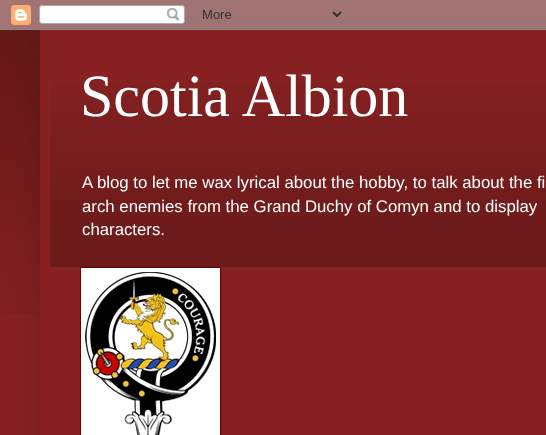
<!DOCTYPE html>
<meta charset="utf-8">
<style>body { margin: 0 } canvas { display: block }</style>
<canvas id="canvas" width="546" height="435"></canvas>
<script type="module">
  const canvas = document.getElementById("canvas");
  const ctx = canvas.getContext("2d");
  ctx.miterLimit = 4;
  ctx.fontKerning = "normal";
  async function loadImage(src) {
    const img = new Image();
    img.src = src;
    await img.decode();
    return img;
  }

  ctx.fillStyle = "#882222";
  ctx.fillRect(0, 0, 546, 435);
  ctx.drawImage(await loadImage("img1.png"), 0, 0, 546, 314);
  ctx.fillStyle = "rgba(0, 0, 0, 0.15)";
  ctx.filter = "blur(20px)";
  ctx.beginPath();
  ctx.rect(40, 30, 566, 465);
  ctx.fill();
  ctx.filter = "none";
  ctx.drawImage(await loadImage("img2.png"), 0, 0, 546, 30);
  ctx.fillStyle = "#882222";
  ctx.fillRect(40, 30, 506, 405);
  ctx.drawImage(await loadImage("img3.png"), 50, 82, 496, 185);
  ctx.font = "60px Liberation Serif";
  ctx.fillStyle = "#ffffff";
  ctx.fillText("Scotia Albion", 80, 116);
  ctx.font = "16.8px Liberation Sans";
  ctx.fillText("A blog to let me wax lyrical about the hobby, to talk about the fi", 82, 188);
  ctx.fillText("arch enemies from the Grand Duchy of Comyn and to display", 82, 212);
  ctx.fillText("characters.", 82, 235);
  ctx.fillStyle = "rgba(0, 0, 0, 0.1)";
  ctx.filter = "blur(2.5px)";
  ctx.beginPath();
  ctx.rect(81, 268, 141, 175);
  ctx.fill();
  ctx.filter = "none";
  ctx.fillStyle = "#ffffff";
  ctx.beginPath();
  ctx.rect(80.5, 267.5, 140, 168);
  ctx.fill();
  ctx.strokeStyle = "#660000";
  ctx.stroke();
  ctx.drawImage(await loadImage("img4.png"), 85, 272, 131, 163);
</script>
